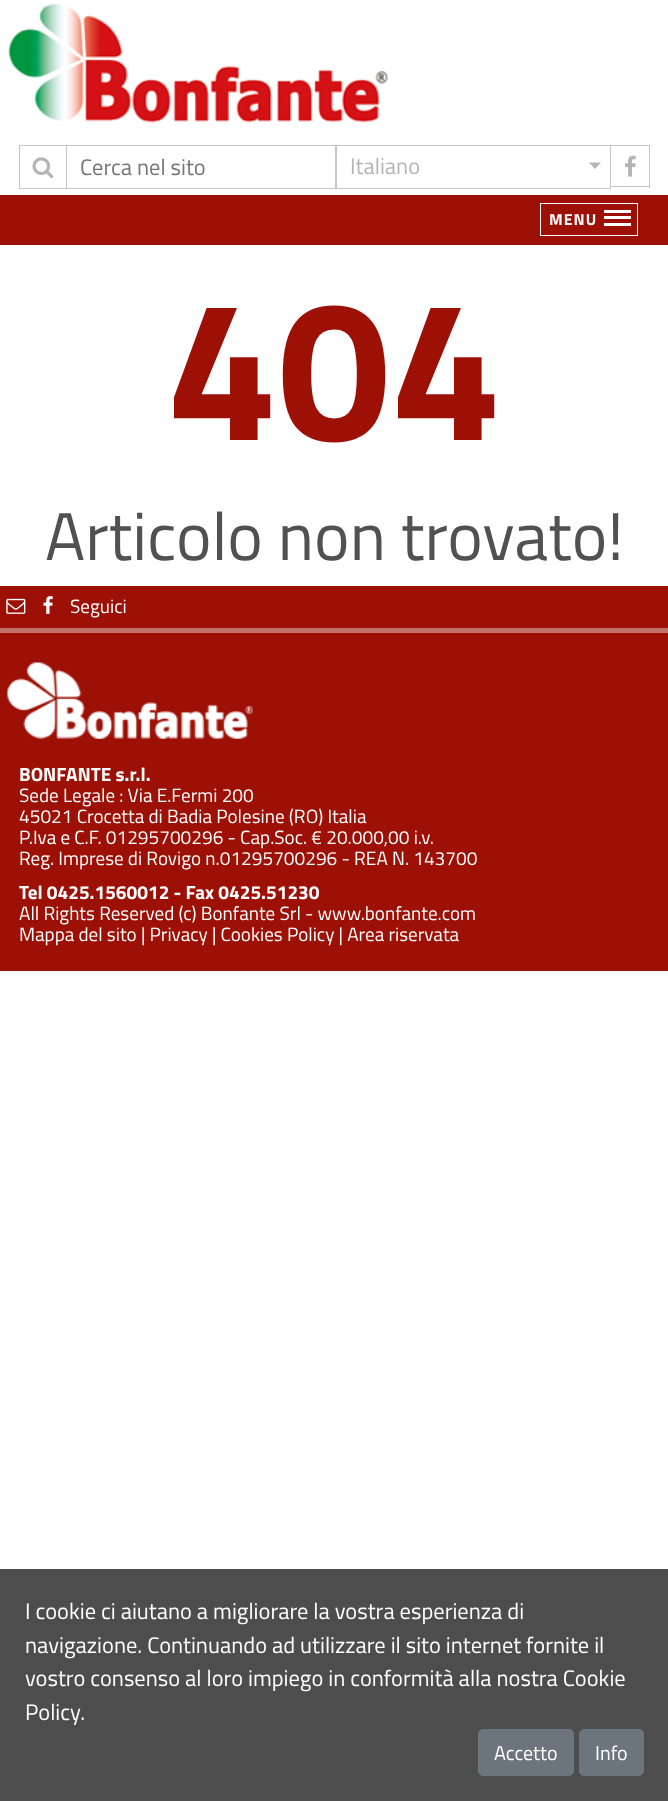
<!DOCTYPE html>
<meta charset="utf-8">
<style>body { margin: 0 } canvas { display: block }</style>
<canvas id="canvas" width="668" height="1801"></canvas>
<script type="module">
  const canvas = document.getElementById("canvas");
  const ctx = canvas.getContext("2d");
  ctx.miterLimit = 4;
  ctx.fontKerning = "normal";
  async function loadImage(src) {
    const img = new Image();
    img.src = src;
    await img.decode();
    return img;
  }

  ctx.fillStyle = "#ffffff";
  ctx.fillRect(0, 0, 668, 1801);
  ctx.drawImage(await loadImage("img1.png"), 8, 3, 381, 120);
  ctx.fillStyle = "#c6c6c6";
  ctx.fillRect(19, 145, 47, 1);
  ctx.fillRect(19, 188, 47, 1);
  ctx.fillRect(19, 145, 1, 44);
  ctx.drawImage(await loadImage("img2.png"), 32, 157, 22, 22);
  ctx.strokeStyle = "#c6c6c6";
  ctx.strokeRect(66.5, 145.5, 269, 43);
  ctx.font = "22.5px Titillium Web";
  ctx.fillStyle = "#757575";
  ctx.fillText("Cerca nel sito", 80, 175);
  ctx.strokeRect(336.5, 145.5, 274, 43);
  ctx.fillStyle = "#b5b5b5";
  ctx.fillText("Italiano", 350, 174);
  ctx.beginPath();
  ctx.moveTo(589, 162.5);
  ctx.lineTo(601, 162.5);
  ctx.lineTo(595, 169);
  ctx.closePath();
  ctx.fill();
  ctx.fillStyle = "#c6c6c6";
  ctx.fillRect(611, 145, 39, 1);
  ctx.fillRect(649, 145, 1, 43);
  ctx.fillRect(611, 186, 39, 1);
  ctx.drawImage(await loadImage("img3.png"), 624, 155, 12, 22);
  ctx.fillStyle = "#9c1006";
  ctx.fillRect(0, 195, 668, 50);
  ctx.strokeStyle = "#ffffff";
  ctx.strokeRect(540.5, 203.5, 97, 32);
  ctx.letterSpacing = "1px";
  ctx.font = "bold 16px Titillium Web";
  ctx.fillStyle = "#ffffff";
  ctx.fillText("MENU", 549, 225);
  ctx.fillRect(604, 210, 27, 3);
  ctx.fillRect(604, 216, 27, 3);
  ctx.fillRect(604, 223, 27, 3);
  ctx.letterSpacing = "0px";
  ctx.font = "bold 200px Titillium Web";
  ctx.fillStyle = "#9c1006";
  ctx.fillText("404", 166, 440);
  ctx.font = "67.5px Titillium Web";
  ctx.fillStyle = "#515151";
  ctx.fillText("Articolo non trovato!", 45, 560);
  ctx.fillStyle = "#9c1006";
  ctx.fillRect(0, 586, 668, 385);
  ctx.fillStyle = "#c4706a";
  ctx.fillRect(0, 628, 668, 5);
  ctx.drawImage(await loadImage("img4.png"), 6, 598, 20, 16);
  ctx.drawImage(await loadImage("img5.png"), 43, 596, 10, 18);
  ctx.font = "19.1px Titillium Web";
  ctx.fillStyle = "#ffffff";
  ctx.fillText("Seguici", 70, 613);
  ctx.drawImage(await loadImage("img6.png"), 7, 662, 246, 77);
  ctx.font = "bold 19.1px Titillium Web";
  ctx.fillText("BONFANTE s.r.l.", 19, 781);
  ctx.font = "19.1px Titillium Web";
  ctx.fillText("Sede Legale : Via E.Fermi 200", 19, 802);
  ctx.fillText("45021 Crocetta di Badia Polesine (RO) Italia", 19, 823);
  ctx.fillText("P.Iva e C.F. 01295700296 - Cap.Soc. € 20.000,00 i.v.", 19, 844);
  ctx.fillText("Reg. Imprese di Rovigo n.01295700296 - REA N. 143700", 19, 865);
  ctx.font = "bold 19.1px Titillium Web";
  ctx.fillText("Tel 0425.1560012 - Fax 0425.51230", 19, 899);
  ctx.font = "19.1px Titillium Web";
  ctx.fillText("All Rights Reserved (c) Bonfante Srl - www.bonfante.com", 19, 920);
  ctx.fillText("Mappa del sito | Privacy | Cookies Policy | Area riservata", 19, 941);
  ctx.fillStyle = "#4d4d4d";
  ctx.fillRect(0, 1569, 668, 232);
  ctx.font = "22.5px Titillium Web";
  ctx.fillStyle = "#ffffff";
  ctx.fillText("I cookie ci aiutano a migliorare la vostra esperienza di", 25, 1619);
  ctx.fillText("navigazione. Continuando ad utilizzare il sito internet fornite il", 25, 1653);
  ctx.fillText("vostro consenso al loro impiego in conformità alla nostra Cookie", 25, 1686);
  ctx.fillText("Policy.", 25, 1720);
  ctx.fillStyle = "#6c757d";
  ctx.beginPath();
  ctx.roundRect(478.5, 1729.5, 95, 46, 4.5);
  ctx.fill();
  ctx.strokeStyle = "#6c757d";
  ctx.stroke();
  ctx.font = "20px Titillium Web";
  ctx.fillStyle = "#ffffff";
  ctx.fillText("Accetto", 494, 1760);
  ctx.fillStyle = "#6c757d";
  ctx.beginPath();
  ctx.roundRect(579.5, 1729.5, 64, 46, 4.5);
  ctx.fill();
  ctx.stroke();
  ctx.fillStyle = "#ffffff";
  ctx.fillText("Info", 595, 1760);
</script>
